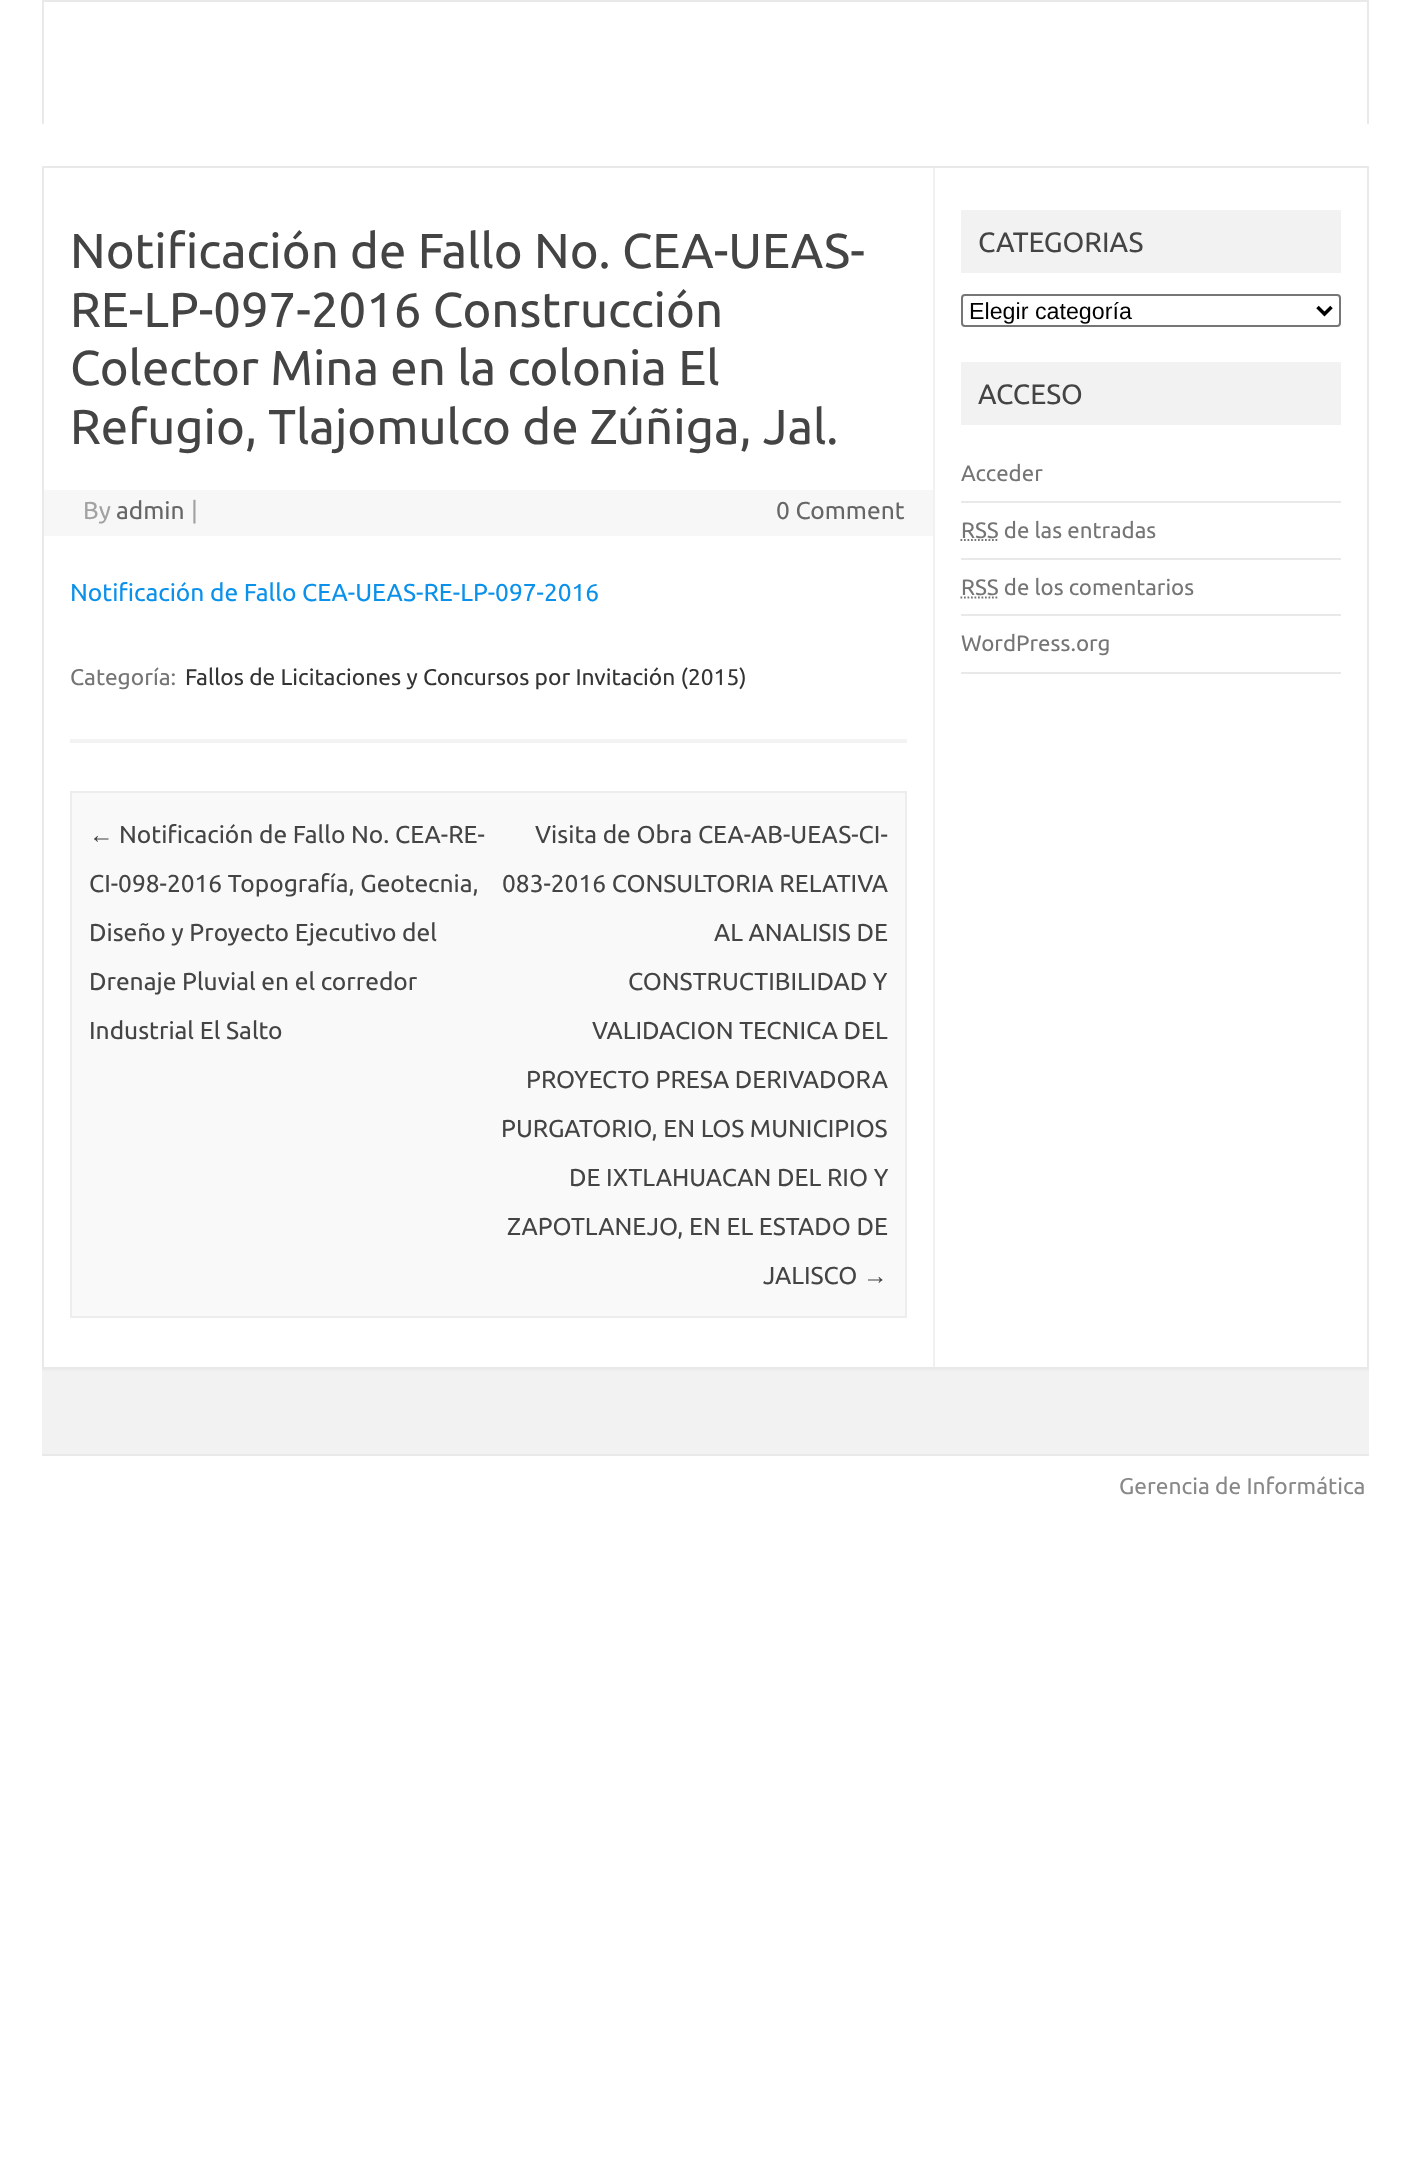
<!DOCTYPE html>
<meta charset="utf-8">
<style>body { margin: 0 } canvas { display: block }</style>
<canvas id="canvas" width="1410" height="2183"></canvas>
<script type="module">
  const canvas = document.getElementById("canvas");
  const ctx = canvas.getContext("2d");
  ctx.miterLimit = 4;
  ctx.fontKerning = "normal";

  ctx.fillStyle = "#ffffff";
  ctx.fillRect(0, 0, 1410, 2183);
  ctx.fillStyle = "#e9e9e9";
  ctx.fillRect(42, 0, 1327, 2);
  ctx.fillRect(1367, 0, 2, 124);
  ctx.fillRect(42, 0, 2, 124);
  ctx.strokeStyle = "#e9e9e9";
  ctx.lineWidth = 2;
  ctx.strokeRect(43, 167, 1325, 1201);
  ctx.fillStyle = "#f1f1f1";
  ctx.fillRect(933, 168, 2, 1199);
  ctx.fillStyle = "#f3f3f3";
  ctx.fillRect(70, 739, 837, 4);
  ctx.font = "49px Ubuntu";
  ctx.fillStyle = "#444444";
  ctx.fillText("Notificación de Fallo No. CEA-UEAS-", 70, 268);
  ctx.fillText("RE-LP-097-2016 Construcción", 70, 327);
  ctx.fillText("Colector Mina en la colonia El", 70, 385);
  ctx.fillText("Refugio, Tlajomulco de Zúñiga, Jal.", 70, 444);
  ctx.fillStyle = "#f7f7f7";
  ctx.fillRect(44, 490, 889, 46);
  ctx.font = "24.5px Ubuntu";
  ctx.fillStyle = "#a2a2a2";
  ctx.fillText("By", 83, 519);
  ctx.fillStyle = "#666666";
  ctx.fillText("admin", 116, 519);
  ctx.fillStyle = "#a2a2a2";
  ctx.fillText("|", 191, 519);
  ctx.fillStyle = "#666666";
  ctx.fillText("0 Comment", 776, 519);
  ctx.fillStyle = "#0b91ea";
  ctx.fillText("Notificación de Fallo CEA-UEAS-RE-LP-097-2016", 70, 601);
  ctx.font = "22.75px Ubuntu";
  ctx.fillStyle = "#757575";
  ctx.fillText("Categoría:", 70, 685);
  ctx.fillStyle = "#333333";
  ctx.fillText("Fallos de Licitaciones y Concursos por Invitación (2015)", 185, 685);
  ctx.fillStyle = "#f9f9f9";
  ctx.beginPath();
  ctx.rect(71, 792, 835, 525);
  ctx.fill();
  ctx.strokeStyle = "#ededed";
  ctx.stroke();
  ctx.font = "24.5px Liberation Sans";
  ctx.fillStyle = "#444444";
  ctx.fillText("←", 89, 843);
  ctx.font = "24.5px Ubuntu";
  ctx.fillText("Notificación de Fallo No. CEA-RE-", 119, 843);
  ctx.fillText("CI-098-2016 Topografía, Geotecnia,", 89, 892);
  ctx.fillText("Diseño y Proyecto Ejecutivo del", 89, 941);
  ctx.fillText("Drenaje Pluvial en el corredor", 89, 990);
  ctx.fillText("Industrial El Salto", 89, 1039);
  ctx.fillText("Visita de Obra CEA-AB-UEAS-CI-", 535, 843);
  ctx.fillText("083-2016 CONSULTORIA RELATIVA", 502, 892);
  ctx.fillText("AL ANALISIS DE", 714, 941);
  ctx.fillText("CONSTRUCTIBILIDAD Y", 628, 990);
  ctx.fillText("VALIDACION TECNICA DEL", 592, 1039);
  ctx.fillText("PROYECTO PRESA DERIVADORA", 526, 1088);
  ctx.fillText("PURGATORIO, EN LOS MUNICIPIOS", 501, 1137);
  ctx.fillText("DE IXTLAHUACAN DEL RIO Y", 569, 1186);
  ctx.fillText("ZAPOTLANEJO, EN EL ESTADO DE", 507, 1235);
  ctx.fillText("JALISCO", 763, 1284);
  ctx.font = "24.5px Liberation Sans";
  ctx.fillText("→", 863, 1284);
  ctx.fillStyle = "#f2f2f2";
  ctx.fillRect(961, 210, 380, 63);
  ctx.font = "28px Ubuntu";
  ctx.fillStyle = "#444444";
  ctx.fillText("CATEGORIAS", 978, 252);
  ctx.beginPath();
  ctx.roundRect(962, 295, 378, 31, 3);
  ctx.strokeStyle = "#767676";
  ctx.stroke();
  ctx.beginPath();
  ctx.moveTo(1317.5, 307);
  ctx.lineTo(1324.5, 314);
  ctx.lineTo(1331.5, 307);
  ctx.strokeStyle = "#000000";
  ctx.lineWidth = 3.5;
  ctx.stroke();
  ctx.font = "23.25px Liberation Sans";
  ctx.fillStyle = "#000000";
  ctx.fillText("Elegir categoría", 969, 319);
  ctx.fillStyle = "#f2f2f2";
  ctx.fillRect(961, 362, 380, 63);
  ctx.font = "28px Ubuntu";
  ctx.fillStyle = "#444444";
  ctx.fillText("ACCESO", 978, 404);
  ctx.fillStyle = "#e9e9e9";
  ctx.fillRect(961, 501, 380, 2);
  ctx.font = "22.25px Ubuntu";
  ctx.fillStyle = "#757575";
  ctx.fillText("Acceder", 961, 481);
  ctx.fillStyle = "#e9e9e9";
  ctx.fillRect(961, 558, 380, 2);
  ctx.fillStyle = "#757575";
  ctx.fillText("RSS de las entradas", 961, 538);
  ctx.beginPath();
  ctx.moveTo(960.5, 540);
  ctx.lineTo(998.5, 540);
  ctx.strokeStyle = "#757575";
  ctx.lineWidth = 1.8;
  ctx.setLineDash([1.75, 1.75]);
  ctx.stroke();
  ctx.fillStyle = "#e9e9e9";
  ctx.fillRect(961, 614, 380, 2);
  ctx.fillStyle = "#757575";
  ctx.fillText("RSS de los comentarios", 961, 595);
  ctx.beginPath();
  ctx.moveTo(960.5, 597.5);
  ctx.lineTo(998.5, 597.5);
  ctx.stroke();
  ctx.fillStyle = "#e9e9e9";
  ctx.fillRect(961, 672, 380, 2);
  ctx.fillStyle = "#757575";
  ctx.fillText("WordPress.org", 961, 651);
  ctx.fillStyle = "#f2f2f2";
  ctx.fillRect(42, 1371, 1327, 83);
  ctx.fillStyle = "#ededed";
  ctx.fillRect(42, 1369, 1327, 2);
  ctx.fillStyle = "#e9e9e9";
  ctx.fillRect(42, 1454, 1327, 2);
  ctx.font = "22.75px Ubuntu";
  ctx.fillStyle = "#888888";
  ctx.fillText("Gerencia de Informática", 1119, 1494);
</script>
